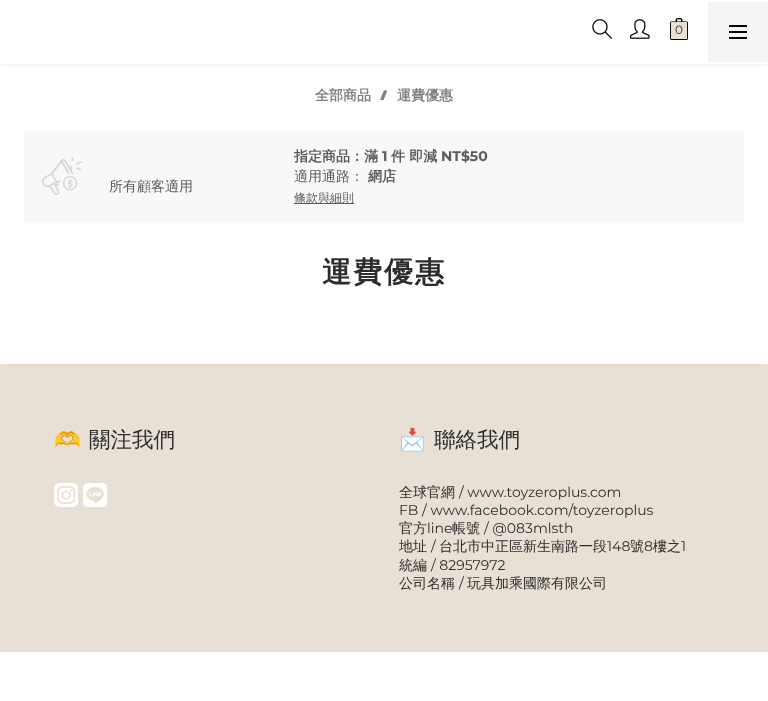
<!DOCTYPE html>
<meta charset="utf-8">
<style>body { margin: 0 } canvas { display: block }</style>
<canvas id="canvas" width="768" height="701"></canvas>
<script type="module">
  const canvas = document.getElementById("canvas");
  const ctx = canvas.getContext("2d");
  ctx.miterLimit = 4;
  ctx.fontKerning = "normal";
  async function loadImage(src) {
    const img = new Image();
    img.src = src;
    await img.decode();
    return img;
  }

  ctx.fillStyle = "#ffffff";
  ctx.fillRect(0, 0, 768, 701);
  ctx.save();
  ctx.beginPath();
  ctx.rect(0, 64, 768, 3);
  ctx.clip();
  ctx.fillStyle = "rgba(0, 0, 0, 0.06)";
  ctx.filter = "blur(3px)";
  ctx.beginPath();
  ctx.rect(0, 2, 768, 64);
  ctx.fill();
  ctx.filter = "none";
  ctx.restore();
  ctx.drawImage(await loadImage("img1.png"), 592, 19, 20, 20);
  ctx.drawImage(await loadImage("img2.png"), 630, 19, 20, 20);
  ctx.drawImage(await loadImage("img3.png"), 670, 18, 18, 22);
  ctx.fillStyle = "#e8e0d4";
  ctx.fillRect(671, 22, 16, 17);
  ctx.font = "12px Montserrat";
  ctx.fillStyle = "#2c2c2c";
  ctx.fillText("0", 675, 34);
  ctx.fillStyle = "#f5f5f5";
  ctx.fillRect(708, 2, 60, 60);
  ctx.fillStyle = "#000000";
  ctx.fillRect(729, 31, 18, 2);
  ctx.fillRect(729, 25, 18, 2);
  ctx.fillRect(729, 37, 18, 2);
  ctx.font = "bold 14px WenQuanYi Zen Hei";
  ctx.fillStyle = "#808080";
  ctx.fillText("全部商品", 315, 100);
  ctx.font = "bold 14px Mitr";
  ctx.fillText("/", 380, 100);
  ctx.font = "bold 14px WenQuanYi Zen Hei";
  ctx.fillText("運費優惠", 397, 100);
  ctx.fillStyle = "#f8f8f8";
  ctx.fillRect(24, 131, 720, 91);
  ctx.drawImage(await loadImage("img4.png"), 42, 157, 40, 38);
  ctx.font = "500 14px WenQuanYi Zen Hei";
  ctx.fillStyle = "#5b5b5b";
  ctx.fillText("所有顧客適用", 109, 191);
  ctx.font = "bold 14px WenQuanYi Zen Hei";
  ctx.fillText("指定商品：滿", 294, 161);
  ctx.font = "bold 14px Montserrat";
  ctx.fillText("1", 382, 161);
  ctx.font = "bold 14px WenQuanYi Zen Hei";
  ctx.fillText("件 即減", 391, 161);
  ctx.font = "bold 14px Montserrat";
  ctx.fillText("NT$50", 441, 161);
  ctx.font = "500 14px WenQuanYi Zen Hei";
  ctx.fillText("適用通路：", 294, 181);
  ctx.font = "bold 14px WenQuanYi Zen Hei";
  ctx.fillText("網店", 368, 181);
  ctx.fillRect(294, 203, 60, 1);
  ctx.font = "500 12px WenQuanYi Zen Hei";
  ctx.fillText("條款與細則", 294, 202);
  ctx.letterSpacing = "2px";
  ctx.font = "bold 29px WenQuanYi Zen Hei";
  ctx.fillStyle = "#2c2c2c";
  ctx.fillText("運費優惠", 322, 282);
  ctx.fillStyle = "#e8e0d4";
  ctx.fillRect(0, 364, 768, 288);
  ctx.fillStyle = "#e2d8c9";
  ctx.fillRect(9, 364, 750, 1);
  ctx.letterSpacing = "0px";
  ctx.font = "21.5px Noto Color Emoji";
  ctx.fillStyle = "#2c2c2c";
  ctx.fillText("🫶", 54, 447);
  ctx.font = "500 21.5px WenQuanYi Zen Hei";
  ctx.fillText("關注我們", 89, 447);
  ctx.drawImage(await loadImage("img5.png"), 54, 483, 24, 24);
  ctx.drawImage(await loadImage("img6.png"), 83, 483, 25, 24);
  ctx.font = "21.5px Noto Color Emoji";
  ctx.fillText("📩", 399, 447);
  ctx.font = "500 21.5px WenQuanYi Zen Hei";
  ctx.fillText("聯絡我們", 434, 447);
  ctx.font = "500 14px WenQuanYi Zen Hei";
  ctx.fillText("全球官網", 399, 497);
  ctx.font = "14px Montserrat";
  ctx.fillText("/ www.toyzeroplus.com", 459, 497);
  ctx.fillText("FB / www.facebook.com/toyzeroplus", 399, 515);
  ctx.font = "500 14px WenQuanYi Zen Hei";
  ctx.fillText("官方", 399, 533);
  ctx.font = "14px Montserrat";
  ctx.fillText("line", 427, 533);
  ctx.font = "500 14px WenQuanYi Zen Hei";
  ctx.fillText("帳號", 452, 533);
  ctx.font = "14px Montserrat";
  ctx.fillText("/ @083mlsth", 484, 533);
  ctx.font = "500 14px WenQuanYi Zen Hei";
  ctx.fillText("地址", 399, 551);
  ctx.font = "14px Montserrat";
  ctx.fillText("/", 431, 551);
  ctx.font = "500 14px WenQuanYi Zen Hei";
  ctx.fillText("台北市中正區新生南路一段", 439, 551);
  ctx.font = "14px Montserrat";
  ctx.fillText("148", 607, 551);
  ctx.font = "500 14px WenQuanYi Zen Hei";
  ctx.fillText("號", 630, 551);
  ctx.font = "14px Montserrat";
  ctx.fillText("8", 644, 551);
  ctx.font = "500 14px WenQuanYi Zen Hei";
  ctx.fillText("樓之", 653, 551);
  ctx.font = "14px Montserrat";
  ctx.fillText("1", 681, 551);
  ctx.font = "500 14px WenQuanYi Zen Hei";
  ctx.fillText("統編", 399, 570);
  ctx.font = "14px Montserrat";
  ctx.fillText("/ 82957972", 431, 570);
  ctx.font = "500 14px WenQuanYi Zen Hei";
  ctx.fillText("公司名稱", 399, 588);
  ctx.font = "14px Montserrat";
  ctx.fillText("/", 459, 588);
  ctx.font = "500 14px WenQuanYi Zen Hei";
  ctx.fillText("玩具加乘國際有限公司", 467, 588);
</script>
